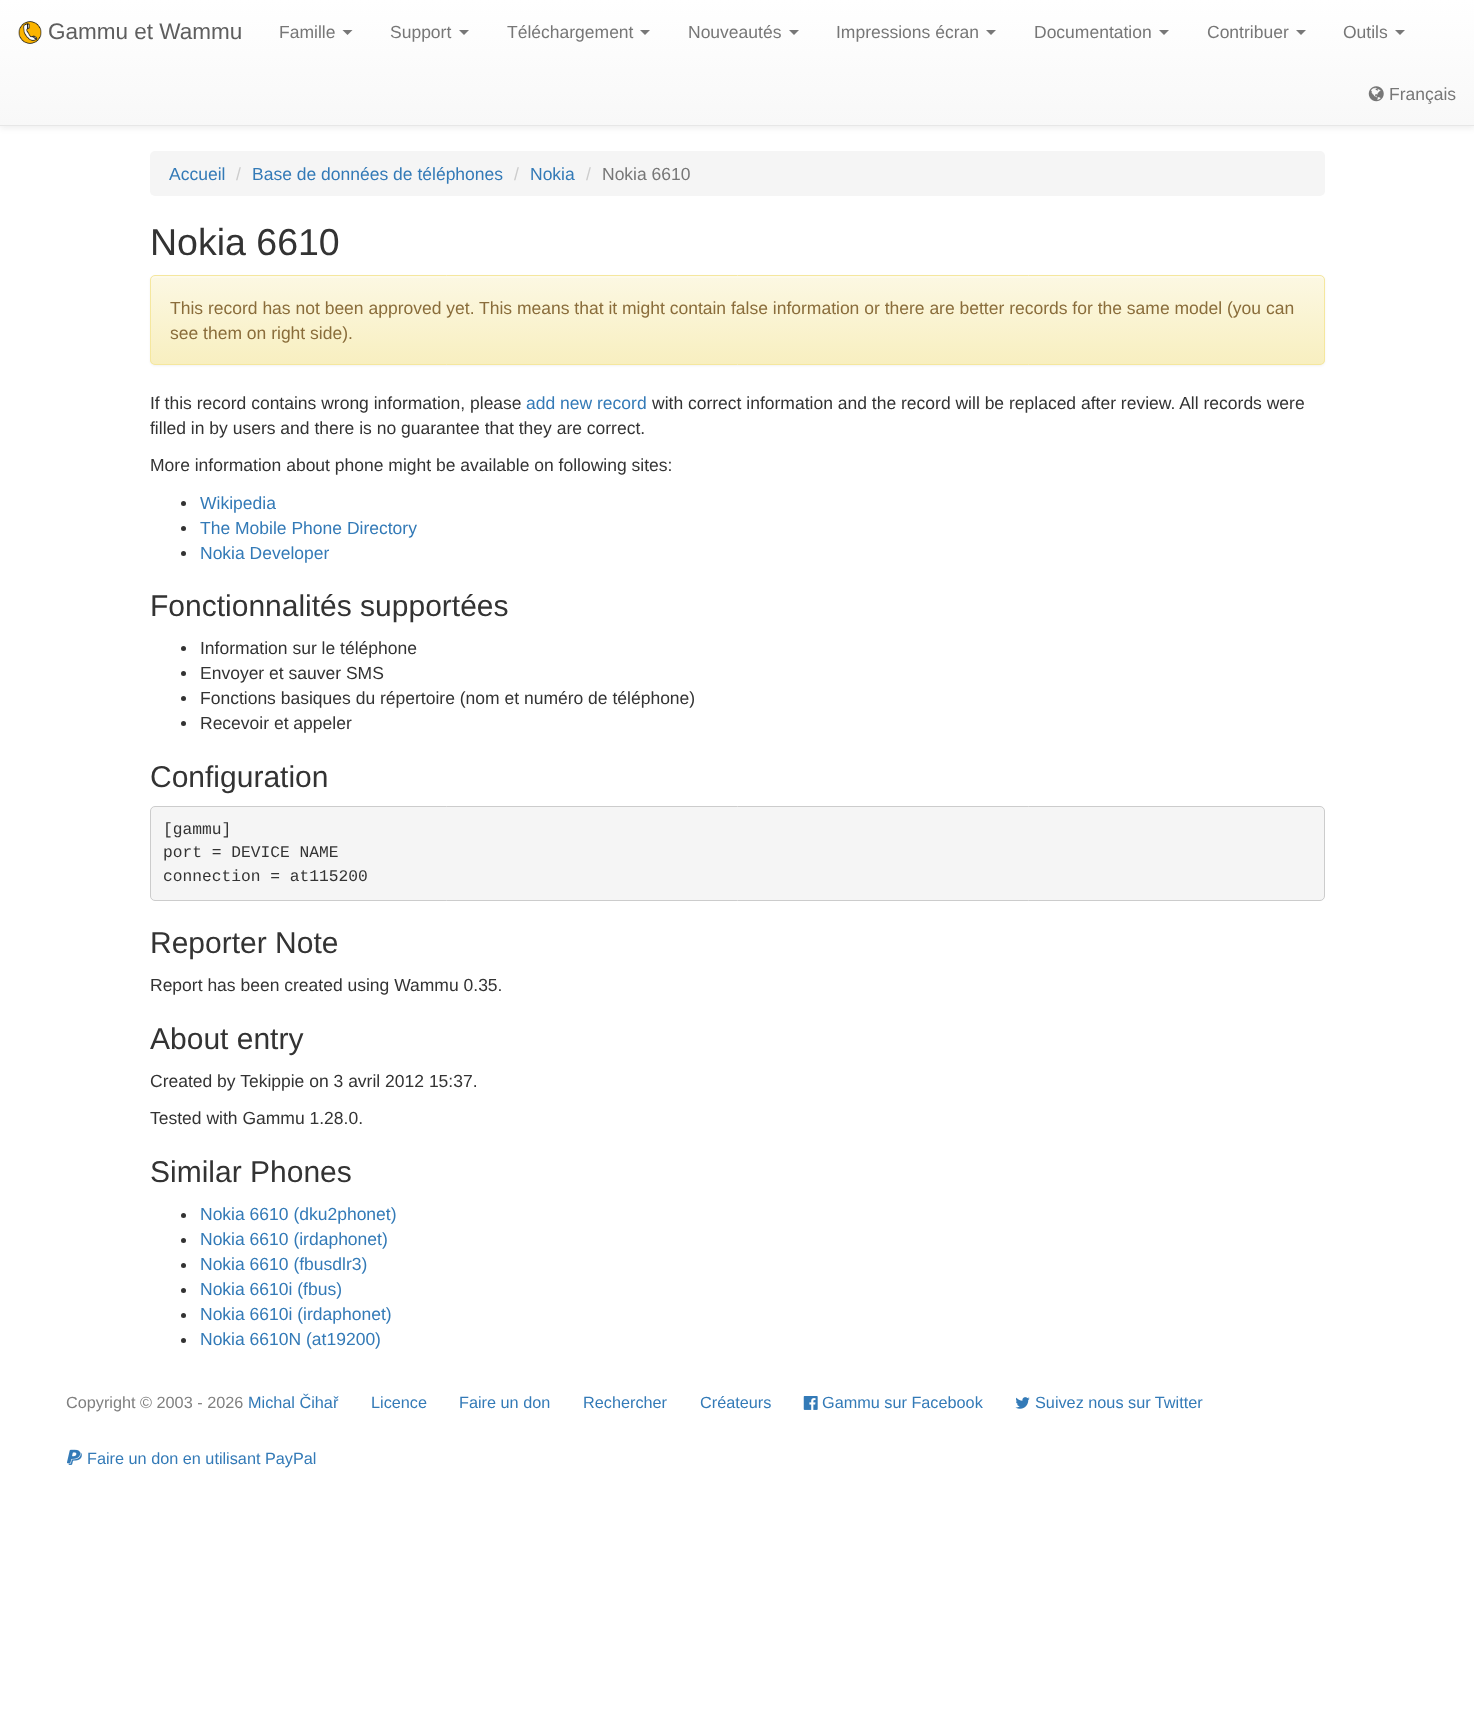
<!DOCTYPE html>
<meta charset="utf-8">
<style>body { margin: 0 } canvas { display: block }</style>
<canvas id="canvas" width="1474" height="1713"></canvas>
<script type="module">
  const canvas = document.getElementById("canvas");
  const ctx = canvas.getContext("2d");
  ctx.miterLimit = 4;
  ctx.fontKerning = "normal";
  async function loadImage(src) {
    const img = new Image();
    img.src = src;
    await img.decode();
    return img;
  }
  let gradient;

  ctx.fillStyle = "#ffffff";
  ctx.fillRect(0, 0, 1474, 1713);
  ctx.fillStyle = "rgba(0, 0, 0, 0.07)";
  ctx.filter = "blur(3px)";
  ctx.beginPath();
  ctx.rect(0, 1, 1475, 127);
  ctx.fill();
  ctx.filter = "none";
  gradient = ctx.createLinearGradient(738, 0, 738, 125);
  gradient.addColorStop(0, "#ffffff");
  gradient.addColorStop(1, "#f8f8f8");
  ctx.fillStyle = gradient;
  ctx.fillRect(0, 0, 1474, 125);
  ctx.fillStyle = "#e7e7e7";
  ctx.fillRect(0, 125, 1474, 1);
  ctx.drawImage(await loadImage("img1.png"), 18, 21, 24, 23);
  ctx.font = "22.5px Liberation Sans";
  ctx.fillStyle = "#5e5e5e";
  ctx.fillText("Gammu et Wammu", 48, 39);
  ctx.font = "17.5px Liberation Sans";
  ctx.fillStyle = "#777777";
  ctx.fillText("Famille", 279, 38);
  ctx.beginPath();
  ctx.moveTo(342.5, 30);
  ctx.lineTo(352.5, 30);
  ctx.lineTo(347.5, 35);
  ctx.closePath();
  ctx.fill();
  ctx.fillText("Support", 390, 38);
  ctx.beginPath();
  ctx.moveTo(459, 30);
  ctx.lineTo(469, 30);
  ctx.lineTo(464, 35);
  ctx.closePath();
  ctx.fill();
  ctx.fillText("Téléchargement", 507, 38);
  ctx.beginPath();
  ctx.moveTo(640, 30);
  ctx.lineTo(650, 30);
  ctx.lineTo(645, 35);
  ctx.closePath();
  ctx.fill();
  ctx.fillText("Nouveautés", 688, 38);
  ctx.beginPath();
  ctx.moveTo(789, 30);
  ctx.lineTo(799, 30);
  ctx.lineTo(794, 35);
  ctx.closePath();
  ctx.fill();
  ctx.fillText("Impressions écran", 836, 38);
  ctx.beginPath();
  ctx.moveTo(986, 30);
  ctx.lineTo(996, 30);
  ctx.lineTo(991, 35);
  ctx.closePath();
  ctx.fill();
  ctx.fillText("Documentation", 1034, 38);
  ctx.beginPath();
  ctx.moveTo(1159, 30);
  ctx.lineTo(1169, 30);
  ctx.lineTo(1164, 35);
  ctx.closePath();
  ctx.fill();
  ctx.fillText("Contribuer", 1207, 38);
  ctx.beginPath();
  ctx.moveTo(1296, 30);
  ctx.lineTo(1306, 30);
  ctx.lineTo(1301, 35);
  ctx.closePath();
  ctx.fill();
  ctx.fillText("Outils", 1343, 38);
  ctx.beginPath();
  ctx.moveTo(1395, 30);
  ctx.lineTo(1405, 30);
  ctx.lineTo(1400, 35);
  ctx.closePath();
  ctx.fill();
  ctx.drawImage(await loadImage("img2.png"), 1368, 86, 16, 16);
  ctx.fillText("Français", 1389, 100);
  ctx.fillStyle = "#f5f5f5";
  ctx.beginPath();
  ctx.roundRect(150, 151, 1175, 45, 5);
  ctx.fill();
  ctx.fillStyle = "#337ab7";
  ctx.fillText("Accueil", 169, 180);
  ctx.fillStyle = "#cccccc";
  ctx.fillText("/", 236, 180);
  ctx.fillStyle = "#337ab7";
  ctx.fillText("Base de données de téléphones", 252, 180);
  ctx.fillStyle = "#cccccc";
  ctx.fillText("/", 514, 180);
  ctx.fillStyle = "#337ab7";
  ctx.fillText("Nokia", 530, 180);
  ctx.fillStyle = "#cccccc";
  ctx.fillText("/", 586, 180);
  ctx.fillStyle = "#777777";
  ctx.fillText("Nokia 6610", 602, 180);
  ctx.font = "37.5px Liberation Sans";
  ctx.fillStyle = "#333333";
  ctx.fillText("Nokia 6610", 150, 255);
  ctx.fillStyle = "rgba(0, 0, 0, 0.05)";
  ctx.filter = "blur(1px)";
  ctx.beginPath();
  ctx.roundRect(150, 276, 1175, 90, 5);
  ctx.fill();
  ctx.filter = "none";
  ctx.save();
  ctx.beginPath();
  ctx.roundRect(150, 275, 1175, 90, 5);
  ctx.clip();
  gradient = ctx.createLinearGradient(738, 276, 738, 364);
  gradient.addColorStop(0, "#fcf8e3");
  gradient.addColorStop(1, "#f8efc0");
  ctx.fillStyle = gradient;
  ctx.fillRect(150, 276, 1175, 88);
  ctx.restore();
  ctx.fillStyle = "#fdfaea";
  ctx.beginPath();
  ctx.moveTo(155, 278);
  ctx.lineTo(1320, 278);
  ctx.bezierCurveTo(1322, 278, 1324, 279, 1324, 281);
  ctx.bezierCurveTo(1324, 278, 1323, 276, 1320, 276);
  ctx.lineTo(155, 276);
  ctx.bezierCurveTo(152, 276, 151, 278, 151, 281);
  ctx.bezierCurveTo(151, 279, 153, 278, 155, 278);
  ctx.closePath();
  ctx.fill();
  ctx.beginPath();
  ctx.roundRect(150.5, 275.5, 1174, 89, 4.5);
  ctx.strokeStyle = "#f5e79e";
  ctx.stroke();
  ctx.font = "17.5px Liberation Sans";
  ctx.fillStyle = "#8a6d3b";
  ctx.fillText("This record has not been approved yet. This means that it might contain false information or there are better records for the same model (you can", 170, 314);
  ctx.fillText("see them on right side).", 170, 339);
  ctx.fillStyle = "#333333";
  ctx.fillText("If this record contains wrong information, please", 150, 409);
  ctx.fillStyle = "#337ab7";
  ctx.fillText("add new record", 526, 409);
  ctx.fillStyle = "#333333";
  ctx.fillText("with correct information and the record will be replaced after review. All records were", 652, 409);
  ctx.fillText("filled in by users and there is no guarantee that they are correct.", 150, 434);
  ctx.fillText("More information about phone might be available on following sites:", 150, 471);
  ctx.beginPath();
  ctx.arc(183.5, 503.5, 2.5, 0, Math.PI * 2);
  ctx.fill();
  ctx.fillStyle = "#337ab7";
  ctx.fillText("Wikipedia", 200, 509);
  ctx.fillStyle = "#333333";
  ctx.beginPath();
  ctx.arc(183.5, 528.5, 2.5, 0, Math.PI * 2);
  ctx.fill();
  ctx.fillStyle = "#337ab7";
  ctx.fillText("The Mobile Phone Directory", 200, 534);
  ctx.fillStyle = "#333333";
  ctx.beginPath();
  ctx.arc(183.5, 553.5, 2.5, 0, Math.PI * 2);
  ctx.fill();
  ctx.fillStyle = "#337ab7";
  ctx.fillText("Nokia Developer", 200, 559);
  ctx.font = "30px Liberation Sans";
  ctx.fillStyle = "#333333";
  ctx.fillText("Fonctionnalités supportées", 150, 616);
  ctx.beginPath();
  ctx.arc(183.5, 648.5, 2.5, 0, Math.PI * 2);
  ctx.fill();
  ctx.font = "17.5px Liberation Sans";
  ctx.fillText("Information sur le téléphone", 200, 654);
  ctx.beginPath();
  ctx.arc(183.5, 673.5, 2.5, 0, Math.PI * 2);
  ctx.fill();
  ctx.fillText("Envoyer et sauver SMS", 200, 679);
  ctx.beginPath();
  ctx.arc(183.5, 698.5, 2.5, 0, Math.PI * 2);
  ctx.fill();
  ctx.fillText("Fonctions basiques du répertoire (nom et numéro de téléphone)", 200, 704);
  ctx.beginPath();
  ctx.arc(183.5, 723.5, 2.5, 0, Math.PI * 2);
  ctx.fill();
  ctx.fillText("Recevoir et appeler", 200, 729);
  ctx.font = "30px Liberation Sans";
  ctx.fillText("Configuration", 150, 787);
  ctx.fillStyle = "#f5f5f5";
  ctx.beginPath();
  ctx.roundRect(150.5, 806.5, 1174, 94, 4.5);
  ctx.fill();
  ctx.strokeStyle = "#cccccc";
  ctx.stroke();
  ctx.font = "16.25px Liberation Mono";
  ctx.fillStyle = "#333333";
  ctx.fillText("[gammu]", 163, 834);
  ctx.fillText("port = DEVICE NAME", 163, 857);
  ctx.fillText("connection = at115200", 163, 881);
  ctx.font = "30px Liberation Sans";
  ctx.fillText("Reporter Note", 150, 953);
  ctx.font = "17.5px Liberation Sans";
  ctx.fillText("Report has been created using Wammu 0.35.", 150, 991);
  ctx.font = "30px Liberation Sans";
  ctx.fillText("About entry", 150, 1049);
  ctx.font = "17.5px Liberation Sans";
  ctx.fillText("Created by Tekippie on 3 avril 2012 15:37.", 150, 1087);
  ctx.fillText("Tested with Gammu 1.28.0.", 150, 1124);
  ctx.font = "30px Liberation Sans";
  ctx.fillText("Similar Phones", 150, 1182);
  ctx.beginPath();
  ctx.arc(183.5, 1215.5, 2.5, 0, Math.PI * 2);
  ctx.fill();
  ctx.font = "17.5px Liberation Sans";
  ctx.fillStyle = "#337ab7";
  ctx.fillText("Nokia 6610 (dku2phonet)", 200, 1220);
  ctx.fillStyle = "#333333";
  ctx.beginPath();
  ctx.arc(183.5, 1240.5, 2.5, 0, Math.PI * 2);
  ctx.fill();
  ctx.fillStyle = "#337ab7";
  ctx.fillText("Nokia 6610 (irdaphonet)", 200, 1245);
  ctx.fillStyle = "#333333";
  ctx.beginPath();
  ctx.arc(183.5, 1265.5, 2.5, 0, Math.PI * 2);
  ctx.fill();
  ctx.fillStyle = "#337ab7";
  ctx.fillText("Nokia 6610 (fbusdlr3)", 200, 1270);
  ctx.fillStyle = "#333333";
  ctx.beginPath();
  ctx.arc(183.5, 1290.5, 2.5, 0, Math.PI * 2);
  ctx.fill();
  ctx.fillStyle = "#337ab7";
  ctx.fillText("Nokia 6610i (fbus)", 200, 1295);
  ctx.fillStyle = "#333333";
  ctx.beginPath();
  ctx.arc(183.5, 1315.5, 2.5, 0, Math.PI * 2);
  ctx.fill();
  ctx.fillStyle = "#337ab7";
  ctx.fillText("Nokia 6610i (irdaphonet)", 200, 1320);
  ctx.fillStyle = "#333333";
  ctx.beginPath();
  ctx.arc(183.5, 1340.5, 2.5, 0, Math.PI * 2);
  ctx.fill();
  ctx.fillStyle = "#337ab7";
  ctx.fillText("Nokia 6610N (at19200)", 200, 1345);
  ctx.font = "16.25px Liberation Sans";
  ctx.fillStyle = "#808080";
  ctx.fillText("Copyright © 2003 - 2026", 66, 1408);
  ctx.fillStyle = "#337ab7";
  ctx.fillText("Michal Čihař", 248, 1408);
  ctx.fillText("Licence", 371, 1408);
  ctx.fillText("Faire un don", 459, 1408);
  ctx.fillText("Rechercher", 583, 1408);
  ctx.fillText("Créateurs", 700, 1408);
  ctx.drawImage(await loadImage("img3.png"), 803, 1396, 15, 14);
  ctx.fillText("Gammu sur Facebook", 822, 1408);
  ctx.drawImage(await loadImage("img4.png"), 1015, 1397, 15, 12);
  ctx.fillText("Suivez nous sur Twitter", 1035, 1408);
  ctx.drawImage(await loadImage("img5.png"), 67, 1449, 15, 16);
  ctx.fillText("Faire un don en utilisant PayPal", 87, 1464);
</script>
